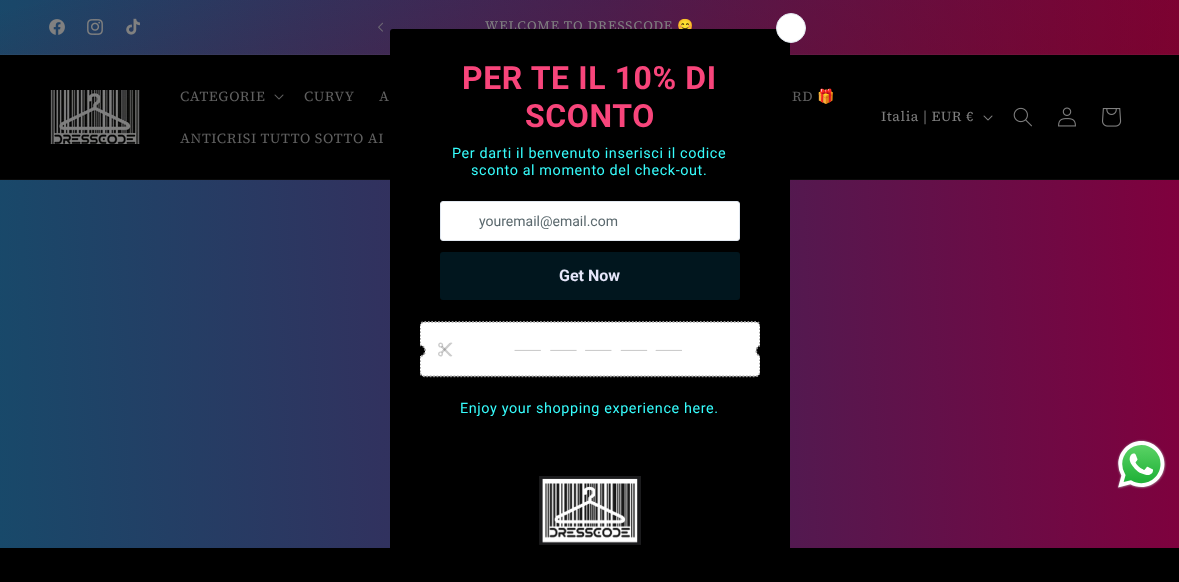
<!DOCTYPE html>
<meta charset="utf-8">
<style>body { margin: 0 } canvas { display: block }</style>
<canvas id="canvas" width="1179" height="582"></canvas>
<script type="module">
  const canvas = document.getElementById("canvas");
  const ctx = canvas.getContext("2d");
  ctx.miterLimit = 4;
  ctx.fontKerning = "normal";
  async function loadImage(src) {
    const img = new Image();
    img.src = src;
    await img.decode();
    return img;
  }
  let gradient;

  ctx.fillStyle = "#ffffff";
  ctx.fillRect(0, 0, 1179, 582);
  gradient = ctx.createLinearGradient(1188, 270, -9, 312);
  gradient.addColorStop(0, "#80003d");
  gradient.addColorStop(0.48, "#402458");
  gradient.addColorStop(1, "#18496a");
  ctx.fillStyle = gradient;
  ctx.fillRect(0, 0, 1179, 548);
  gradient = ctx.createLinearGradient(487, -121, 692, 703);
  gradient.addColorStop(0.01, "rgba(119, 5, 31, 0)");
  gradient.addColorStop(0.88, "#77051f");
  ctx.fillStyle = gradient;
  ctx.fillRect(0, 0, 1179, 55);
  ctx.fillStyle = "rgba(128, 128, 128, 0.08)";
  ctx.fillRect(0, 54, 1179, 1);
  ctx.drawImage(await loadImage("img1.png"), 49, 19, 16, 16);
  ctx.drawImage(await loadImage("img2.png"), 87, 19, 16, 16);
  ctx.drawImage(await loadImage("img3.png"), 126, 18, 14, 17);
  ctx.drawImage(await loadImage("img4.png"), 378, 22, 5, 10);
  ctx.letterSpacing = "1px";
  ctx.font = "13px 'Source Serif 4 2'";
  ctx.fillStyle = "#808080";
  ctx.fillText("WELCOME TO DRESSCODE", 485, 30);
  ctx.font = "13px Noto Color Emoji";
  ctx.fillText("😊", 677, 30);
  ctx.fillStyle = "#000000";
  ctx.fillRect(0, 55, 1179, 124);
  ctx.fillStyle = "#0a0a0a";
  ctx.fillRect(0, 179, 1179, 1);
  ctx.fillStyle = "#000000";
  ctx.fillRect(0, 548, 1179, 34);
  ctx.beginPath();
  ctx.roundRect(390, 29, 400, 524, 3);
  ctx.fill();
  ctx.fillStyle = "#ffffff";
  ctx.beginPath();
  ctx.arc(791, 28, 14.5, 0, Math.PI * 2);
  ctx.fill();
  ctx.strokeStyle = "#e2e8f0";
  ctx.stroke();
  ctx.letterSpacing = "0.6px";
  ctx.font = "bold 32px Roboto";
  ctx.fillStyle = "#f8457b";
  ctx.fillText("PER TE IL 10% DI", 462, 89);
  ctx.fillText("SCONTO", 525, 127);
  ctx.font = "14.4px Roboto";
  ctx.fillStyle = "#36fcfc";
  ctx.fillText("Per darti il benvenuto inserisci il codice", 452, 158);
  ctx.fillText("sconto al momento del check-out.", 471, 175);
  ctx.fillStyle = "#ffffff";
  ctx.beginPath();
  ctx.roundRect(440.5, 201.5, 299, 39, 2.5);
  ctx.fill();
  ctx.stroke();
  ctx.letterSpacing = "0px";
  ctx.font = "14px Roboto";
  ctx.fillStyle = "#5a686d";
  ctx.fillText("youremail@email.com", 479, 226);
  ctx.fillStyle = "#01161e";
  ctx.beginPath();
  ctx.roundRect(440, 252, 300, 48, 3);
  ctx.fill();
  ctx.font = "bold 16px Roboto";
  ctx.fillStyle = "#e6e6fa";
  ctx.fillText("Get Now", 559, 281);
  ctx.drawImage(await loadImage("img5.png"), 420, 321, 340, 57);
  ctx.letterSpacing = "0.6px";
  ctx.font = "14.4px Roboto";
  ctx.fillStyle = "#36fcfc";
  ctx.fillText("Enjoy your shopping experience here.", 460, 413);
  ctx.drawImage(await loadImage("img6.png"), 539, 476, 102, 69);
  ctx.drawImage(await loadImage("img7.png"), 50, 90, 90, 54);
  ctx.font = "14px 'Source Serif 4'";
  ctx.fillStyle = "#606060";
  ctx.fillText("CATEGORIE", 180, 101);
  ctx.drawImage(await loadImage("img8.png"), 274, 94, 10, 6);
  ctx.fillText("CURVY", 304, 101);
  ctx.fillText("A", 379, 101);
  ctx.fillText("RD", 792, 101);
  ctx.font = "14px Noto Color Emoji";
  ctx.fillText("🎁", 817, 101);
  ctx.font = "14px 'Source Serif 4'";
  ctx.fillText("ANTICRISI TUTTO SOTTO AI", 180, 143);
  ctx.fillStyle = "#808080";
  ctx.fillText("Italia | EUR €", 881, 121);
  ctx.drawImage(await loadImage("img9.png"), 983, 115, 10, 6);
  ctx.drawImage(await loadImage("img10.png"), 1013, 107, 19, 20);
  ctx.drawImage(await loadImage("img11.png"), 1058, 107, 18, 20);
  ctx.drawImage(await loadImage("img12.png"), 1102, 108, 20, 19);
  ctx.drawImage(await loadImage("img13.png"), 1116, 439, 51, 50);
</script>
